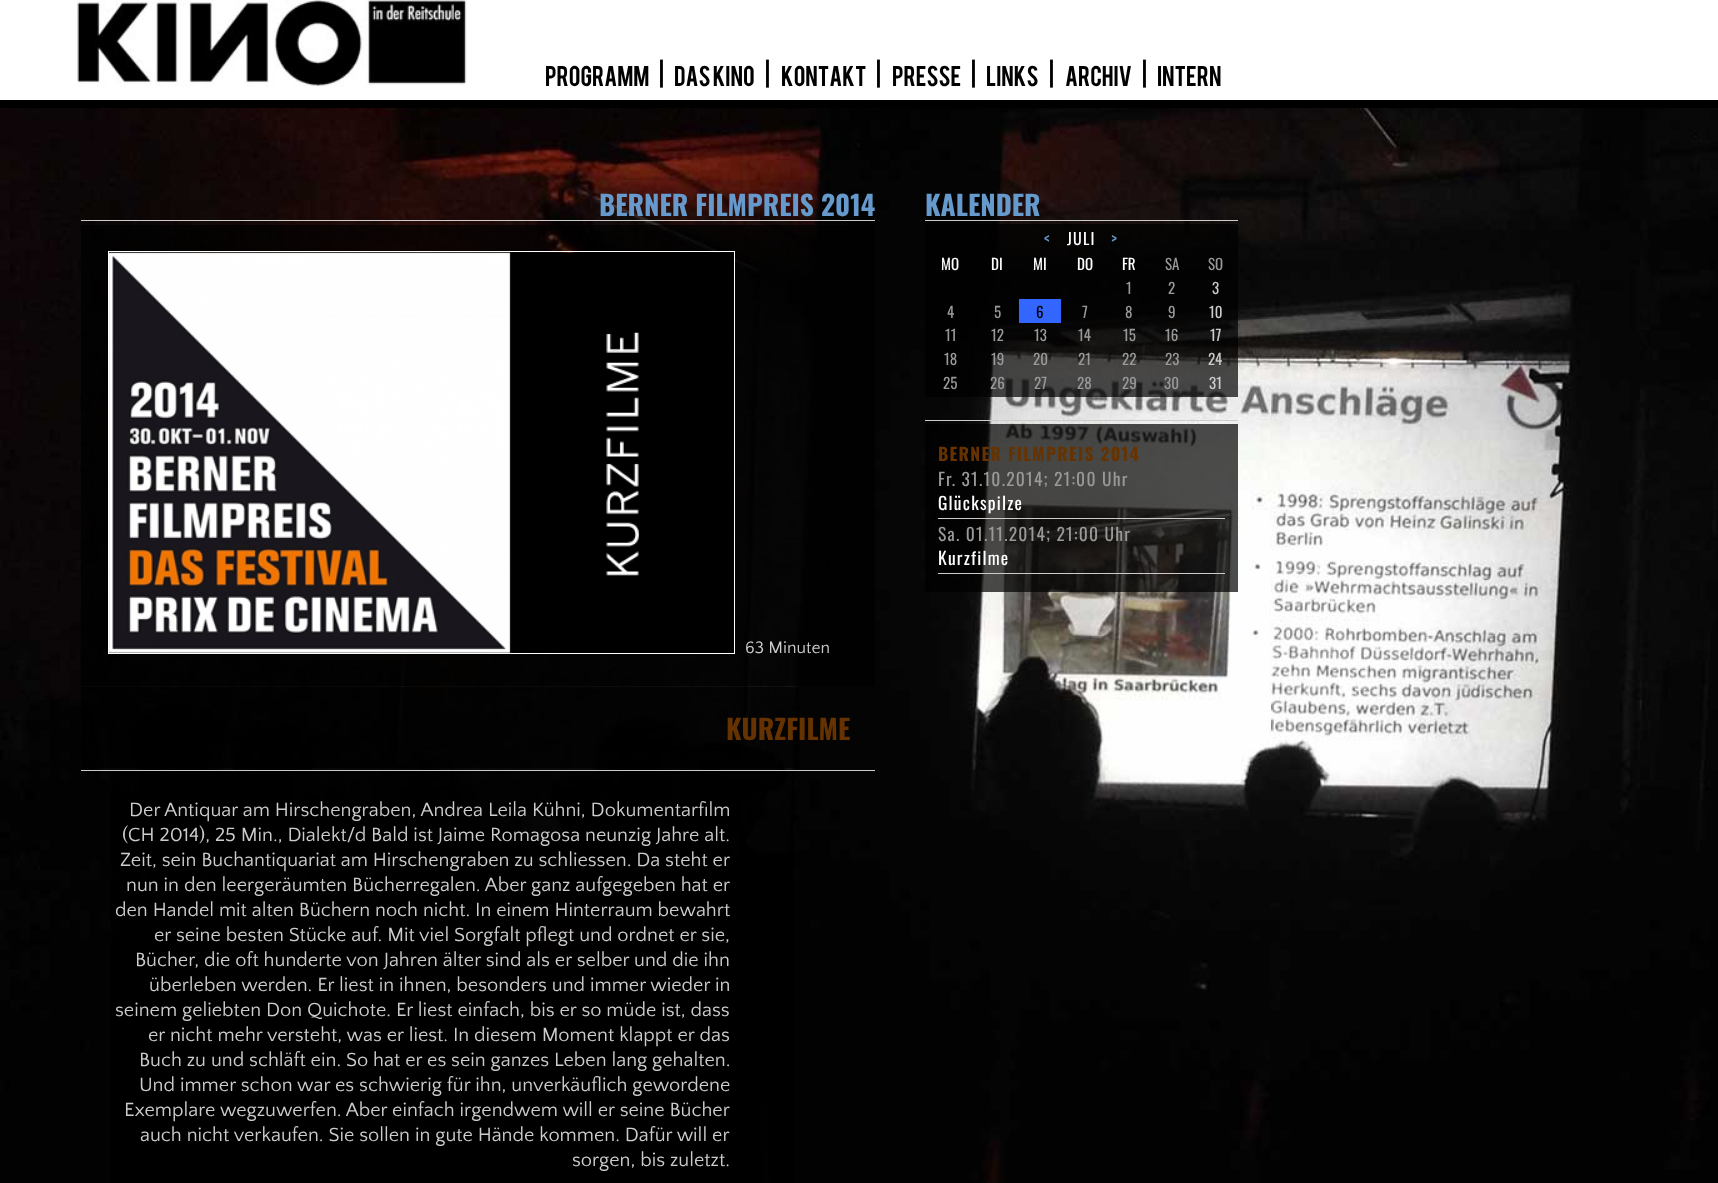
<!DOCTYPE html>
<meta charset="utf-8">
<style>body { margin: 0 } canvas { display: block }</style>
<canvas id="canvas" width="1718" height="1183"></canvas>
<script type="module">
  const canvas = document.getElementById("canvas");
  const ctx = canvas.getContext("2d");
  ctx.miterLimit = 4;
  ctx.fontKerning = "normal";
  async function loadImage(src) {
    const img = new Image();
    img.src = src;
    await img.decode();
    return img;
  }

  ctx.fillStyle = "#ffffff";
  ctx.fillRect(0, 0, 1718, 1183);
  ctx.drawImage(await loadImage("img1.png"), 0, 108, 1718, 1075);
  ctx.drawImage(await loadImage("img2.png"), 76, 0, 391, 87);
  ctx.font = "22.5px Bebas";
  ctx.fillStyle = "#000000";
  ctx.fillText("PROGRAMM", 545, 86);
  ctx.fillText("|", 659, 86);
  ctx.fillText("DAS KINO", 674, 86);
  ctx.fillText("|", 765, 86);
  ctx.fillText("KONTAKT", 781, 86);
  ctx.fillText("|", 876, 86);
  ctx.fillText("PRESSE", 892, 86);
  ctx.fillText("|", 971, 86);
  ctx.fillText("LINKS", 986, 86);
  ctx.fillText("|", 1049, 86);
  ctx.fillText("ARCHIV", 1065, 86);
  ctx.fillText("|", 1142, 86);
  ctx.fillText("INTERN", 1157, 86);
  ctx.fillRect(0, 100, 1718, 8);
  ctx.font = "bold 27.5px Oswald";
  ctx.fillStyle = "#6699cc";
  ctx.fillText("BERNER FILMPREIS 2014", 599, 216);
  ctx.fillStyle = "#cccccc";
  ctx.fillRect(81, 220, 794, 1);
  ctx.fillStyle = "rgba(0, 0, 0, 0.7)";
  ctx.fillRect(81, 225, 794, 461);
  ctx.strokeStyle = "#ffffff";
  ctx.strokeRect(108.5, 251.5, 626, 402);
  ctx.drawImage(await loadImage("img3.png"), 108, 252, 626, 401);
  ctx.font = "17.5px Quattrocento Sans";
  ctx.fillStyle = "#cccccc";
  ctx.fillText("63 Minuten", 745, 653);
  ctx.fillStyle = "rgba(0, 0, 0, 0.7)";
  ctx.fillRect(81, 687, 718, 81);
  ctx.font = "bold 27.5px Oswald";
  ctx.fillStyle = "#663300";
  ctx.fillText("KURZFILME", 726, 740);
  ctx.fillStyle = "rgba(0, 0, 0, 0.7)";
  ctx.fillRect(111, 771, 683, 412);
  ctx.fillStyle = "#cccccc";
  ctx.fillRect(81, 770, 794, 1);
  ctx.font = "20px Quattrocento Sans";
  ctx.fillText("Der Antiquar am Hirschengraben, Andrea Leila Kühni, Dokumentarfilm", 129, 816);
  ctx.fillText("(CH 2014), 25 Min., Dialekt/d Bald ist Jaime Romagosa neunzig Jahre alt.", 122, 841);
  ctx.fillText("Zeit, sein Buchantiquariat am Hirschengraben zu schliessen. Da steht er", 120, 866);
  ctx.fillText("nun in den leergeräumten Bücherregalen. Aber ganz aufgegeben hat er", 126, 891);
  ctx.fillText("den Handel mit alten Büchern noch nicht. In einem Hinterraum bewahrt", 115, 916);
  ctx.fillText("er seine besten Stücke auf. Mit viel Sorgfalt pflegt und ordnet er sie,", 154, 941);
  ctx.fillText("Bücher, die oft hunderte von Jahren älter sind als er selber und die ihn", 135, 966);
  ctx.fillText("überleben werden. Er liest in ihnen, besonders und immer wieder in", 149, 991);
  ctx.fillText("seinem geliebten Don Quichote. Er liest einfach, bis er so müde ist, dass", 115, 1016);
  ctx.fillText("er nicht mehr versteht, was er liest. In diesem Moment klappt er das", 148, 1041);
  ctx.fillText("Buch zu und schläft ein. So hat er es sein ganzes Leben lang gehalten.", 139, 1066);
  ctx.fillText("Und immer schon war es schwierig für ihn, unverkäuflich gewordene", 139, 1091);
  ctx.fillText("Exemplare wegzuwerfen. Aber einfach irgendwem will er seine Bücher", 124, 1116);
  ctx.fillText("auch nicht verkaufen. Sie sollen in gute Hände kommen. Dafür will er", 140, 1141);
  ctx.fillText("sorgen, bis zuletzt.", 572, 1166);
  ctx.font = "bold 27.5px Oswald";
  ctx.fillStyle = "#6699cc";
  ctx.fillText("KALENDER", 925, 216);
  ctx.fillStyle = "#cccccc";
  ctx.fillRect(925, 220, 313, 1);
  ctx.fillStyle = "rgba(0, 0, 0, 0.7)";
  ctx.fillRect(925, 224, 313, 173);
  ctx.letterSpacing = "1.25px";
  ctx.font = "16px Oswald";
  ctx.fillStyle = "#6699cc";
  ctx.fillText("<", 1044, 245);
  ctx.fillStyle = "#ffffff";
  ctx.fillText("JULI", 1067, 245);
  ctx.fillStyle = "#6699cc";
  ctx.fillText(">", 1111, 245);
  ctx.letterSpacing = "0px";
  ctx.font = "15px Oswald";
  ctx.fillStyle = "#ffffff";
  ctx.fillText("MO", 941, 270);
  ctx.fillText("DI", 991, 270);
  ctx.fillText("MI", 1033, 270);
  ctx.fillText("DO", 1077, 270);
  ctx.fillText("FR", 1122, 270);
  ctx.fillStyle = "#999999";
  ctx.fillText("SA", 1165, 270);
  ctx.fillText("SO", 1208, 270);
  ctx.fillText("1", 1126, 294);
  ctx.fillText("2", 1168, 294);
  ctx.fillStyle = "#cccccc";
  ctx.fillText("3", 1212, 294);
  ctx.fillStyle = "#999999";
  ctx.fillText("4", 947, 318);
  ctx.fillText("5", 994, 318);
  ctx.fillStyle = "#3366ff";
  ctx.fillRect(1019, 299, 42, 24);
  ctx.fillStyle = "#000000";
  ctx.fillText("6", 1036, 318);
  ctx.fillStyle = "#999999";
  ctx.fillText("7", 1082, 318);
  ctx.fillText("8", 1125, 318);
  ctx.fillText("9", 1168, 318);
  ctx.fillStyle = "#cccccc";
  ctx.fillText("10", 1209, 318);
  ctx.fillStyle = "#999999";
  ctx.fillText("11", 945, 341);
  ctx.fillText("12", 991, 341);
  ctx.fillText("13", 1034, 341);
  ctx.fillText("14", 1078, 341);
  ctx.fillText("15", 1123, 341);
  ctx.fillText("16", 1165, 341);
  ctx.fillStyle = "#cccccc";
  ctx.fillText("17", 1210, 341);
  ctx.fillStyle = "#999999";
  ctx.fillText("18", 944, 365);
  ctx.fillText("19", 991, 365);
  ctx.fillText("20", 1033, 365);
  ctx.fillText("21", 1078, 365);
  ctx.fillText("22", 1122, 365);
  ctx.fillText("23", 1165, 365);
  ctx.fillStyle = "#cccccc";
  ctx.fillText("24", 1208, 365);
  ctx.fillStyle = "#999999";
  ctx.fillText("25", 943, 389);
  ctx.fillText("26", 990, 389);
  ctx.fillText("27", 1034, 389);
  ctx.fillText("28", 1077, 389);
  ctx.fillText("29", 1122, 389);
  ctx.fillText("30", 1164, 389);
  ctx.fillStyle = "#cccccc";
  ctx.fillText("31", 1209, 389);
  ctx.fillRect(925, 420, 313, 1);
  ctx.fillStyle = "rgba(0, 0, 0, 0.7)";
  ctx.fillRect(925, 424, 313, 168);
  ctx.letterSpacing = "1.25px";
  ctx.font = "bold 17.5px Oswald";
  ctx.fillStyle = "#663300";
  ctx.fillText("BERNER FILMPREIS 2014", 938, 461);
  ctx.font = "17.5px Oswald";
  ctx.fillStyle = "#999999";
  ctx.fillText("Fr. 31.10.2014; 21:00 Uhr", 938, 486);
  ctx.fillStyle = "#ffffff";
  ctx.fillText("Glückspilze", 938, 510);
  ctx.fillStyle = "#cccccc";
  ctx.fillRect(938, 518, 287, 1);
  ctx.fillStyle = "#999999";
  ctx.fillText("Sa. 01.11.2014; 21:00 Uhr", 938, 541);
  ctx.fillStyle = "#ffffff";
  ctx.fillText("Kurzfilme", 938, 565);
  ctx.fillStyle = "#cccccc";
  ctx.fillRect(938, 573, 287, 1);
</script>
